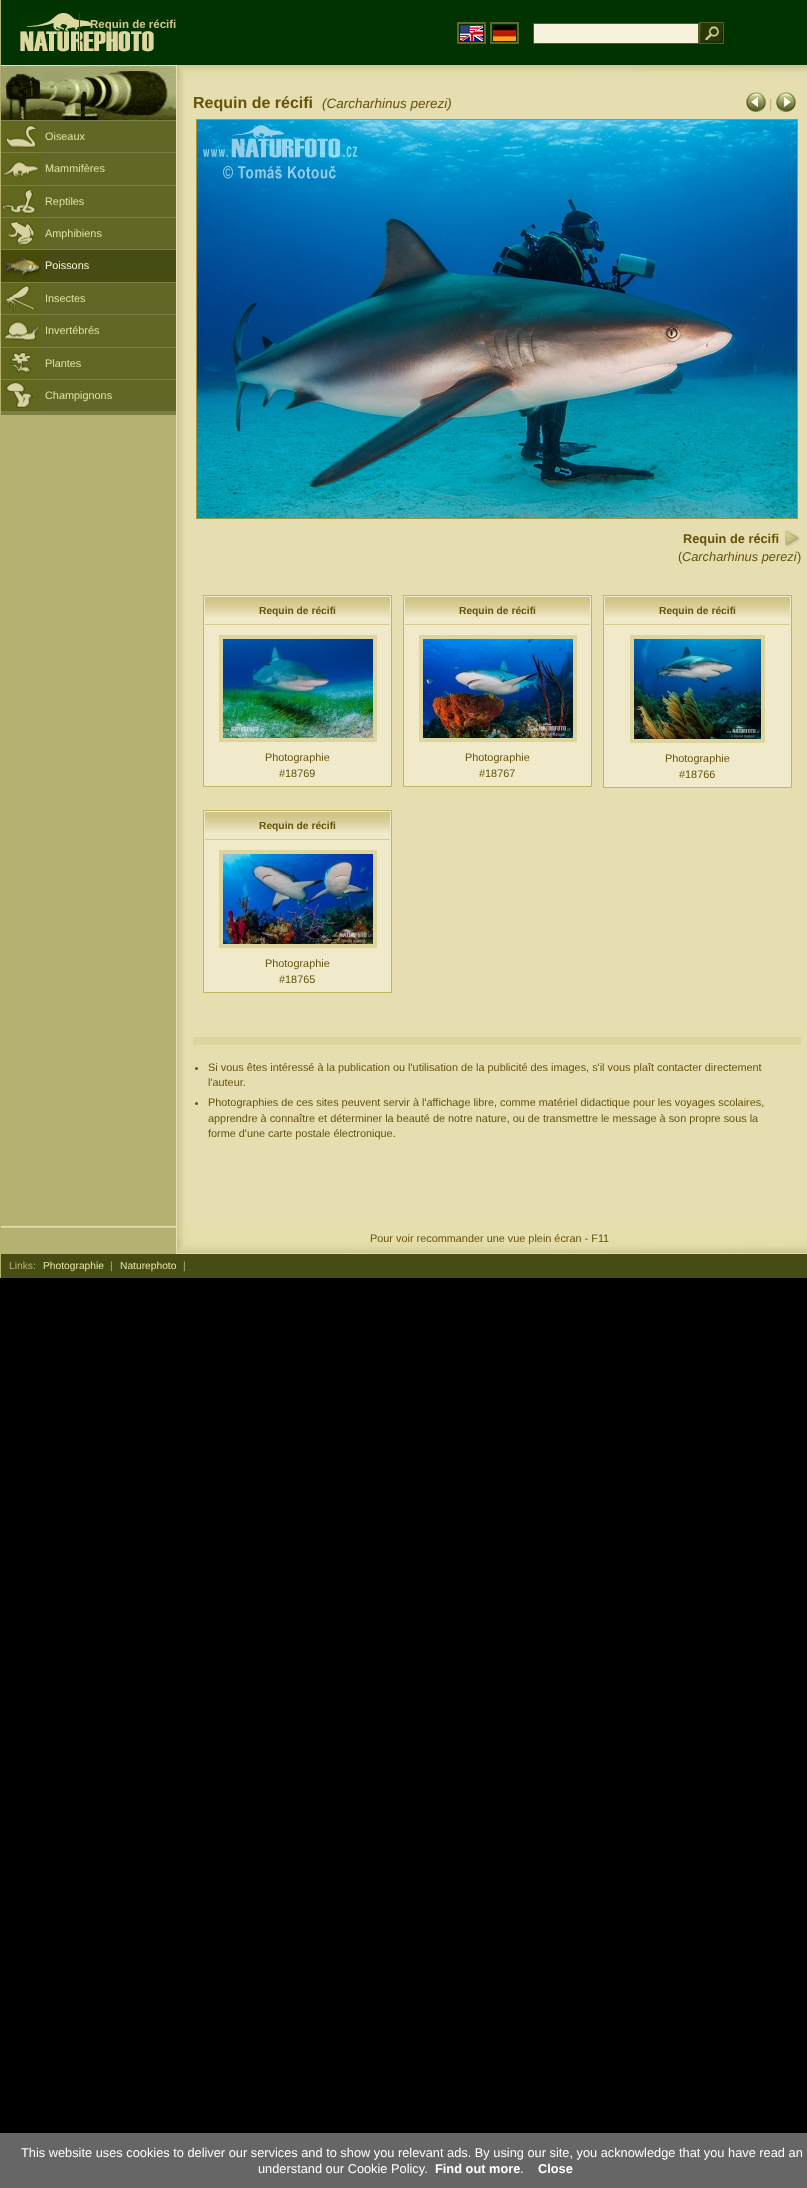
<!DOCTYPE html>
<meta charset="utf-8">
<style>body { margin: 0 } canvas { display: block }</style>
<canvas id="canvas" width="807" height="2188"></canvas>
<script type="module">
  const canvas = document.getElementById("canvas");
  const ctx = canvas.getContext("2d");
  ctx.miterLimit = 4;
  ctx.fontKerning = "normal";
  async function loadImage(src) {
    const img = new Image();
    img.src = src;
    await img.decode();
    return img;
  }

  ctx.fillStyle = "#000000";
  ctx.fillRect(0, 0, 807, 2188);
  ctx.drawImage(await loadImage("img1.png"), 1, 415, 175, 839);
  ctx.fillStyle = "#b5b06c";
  ctx.fillRect(0, 0, 1, 1278);
  ctx.fillStyle = "#013300";
  ctx.fillRect(1, 0, 806, 65);
  ctx.fillStyle = "#e6deb0";
  ctx.fillRect(1, 65, 175, 1);
  ctx.drawImage(await loadImage("img2.png"), 20, 13, 134, 39);
  ctx.fillStyle = "#234c18";
  ctx.fillRect(79, 13, 1, 38);
  ctx.font = "bold 11.5px Liberation Sans";
  ctx.fillStyle = "#d0c691";
  ctx.fillText("Requin de récifi", 90, 28);
  ctx.strokeStyle = "#626727";
  ctx.lineWidth = 2;
  ctx.strokeRect(458, 23, 27, 20);
  ctx.strokeRect(491, 23, 27, 20);
  ctx.fillStyle = "#f7f2dc";
  ctx.beginPath();
  ctx.rect(533.5, 23.5, 165, 20);
  ctx.fill();
  ctx.strokeStyle = "#525b22";
  ctx.lineWidth = 1;
  ctx.stroke();
  ctx.drawImage(await loadImage("img3.png"), 699, 22, 25, 22);
  ctx.drawImage(await loadImage("img4.png"), 460, 25, 23, 16);
  ctx.drawImage(await loadImage("img5.png"), 493, 25, 23, 16);
  ctx.drawImage(await loadImage("img6.png"), 1, 66, 175, 55);
  ctx.fillStyle = "#7b7f44";
  ctx.fillRect(1, 411, 175, 4);
  ctx.fillRect(1, 152, 175, 1);
  ctx.fillStyle = "#626727";
  ctx.fillRect(1, 121, 175, 31);
  ctx.drawImage(await loadImage("img7.png"), 1, 121, 40, 31);
  ctx.font = "10.88px Liberation Sans";
  ctx.fillStyle = "#e0e2a0";
  ctx.fillText("Oiseaux", 45, 140);
  ctx.fillStyle = "#7b7f44";
  ctx.fillRect(1, 185, 175, 1);
  ctx.fillStyle = "#626727";
  ctx.fillRect(1, 153, 175, 32);
  ctx.drawImage(await loadImage("img8.png"), 1, 153, 40, 32);
  ctx.fillStyle = "#e0e2a0";
  ctx.fillText("Mammifères", 45, 172);
  ctx.fillStyle = "#7b7f44";
  ctx.fillRect(1, 217, 175, 1);
  ctx.fillStyle = "#626727";
  ctx.fillRect(1, 186, 175, 31);
  ctx.drawImage(await loadImage("img9.png"), 1, 186, 40, 31);
  ctx.fillStyle = "#e0e2a0";
  ctx.fillText("Reptiles", 45, 205);
  ctx.fillStyle = "#7b7f44";
  ctx.fillRect(1, 249, 175, 1);
  ctx.fillStyle = "#626727";
  ctx.fillRect(1, 218, 175, 31);
  ctx.drawImage(await loadImage("img10.png"), 1, 218, 40, 31);
  ctx.fillStyle = "#e0e2a0";
  ctx.fillText("Amphibiens", 45, 237);
  ctx.fillStyle = "#7b7f44";
  ctx.fillRect(1, 282, 175, 1);
  ctx.fillStyle = "#474c14";
  ctx.fillRect(1, 250, 175, 32);
  ctx.drawImage(await loadImage("img11.png"), 1, 250, 40, 32);
  ctx.fillStyle = "#fef9df";
  ctx.fillText("Poissons", 45, 269);
  ctx.fillStyle = "#7b7f44";
  ctx.fillRect(1, 314, 175, 1);
  ctx.fillStyle = "#626727";
  ctx.fillRect(1, 283, 175, 31);
  ctx.drawImage(await loadImage("img12.png"), 1, 283, 40, 31);
  ctx.fillStyle = "#e0e2a0";
  ctx.fillText("Insectes", 45, 302);
  ctx.fillStyle = "#7b7f44";
  ctx.fillRect(1, 347, 175, 1);
  ctx.fillStyle = "#626727";
  ctx.fillRect(1, 315, 175, 32);
  ctx.drawImage(await loadImage("img13.png"), 1, 315, 40, 32);
  ctx.fillStyle = "#e0e2a0";
  ctx.fillText("Invertébrés", 45, 334);
  ctx.fillStyle = "#7b7f44";
  ctx.fillRect(1, 379, 175, 1);
  ctx.fillStyle = "#626727";
  ctx.fillRect(1, 348, 175, 31);
  ctx.drawImage(await loadImage("img14.png"), 1, 348, 40, 31);
  ctx.fillStyle = "#e0e2a0";
  ctx.fillText("Plantes", 45, 367);
  ctx.fillStyle = "#626727";
  ctx.fillRect(1, 380, 175, 31);
  ctx.drawImage(await loadImage("img15.png"), 1, 380, 40, 31);
  ctx.fillStyle = "#e0e2a0";
  ctx.fillText("Champignons", 45, 399);
  ctx.fillStyle = "#e6deb0";
  ctx.fillRect(176, 65, 631, 1161);
  ctx.drawImage(await loadImage("img16.png"), 177, 81, 8, 1145);
  ctx.drawImage(await loadImage("img17.png"), 177, 65, 630, 16);
  ctx.font = "bold 16px Liberation Sans";
  ctx.fillStyle = "#65530b";
  ctx.fillText("Requin de récifi", 193, 108);
  ctx.font = "italic 13.5px Liberation Sans";
  ctx.fillText("(Carcharhinus perezi)", 322, 108);
  ctx.drawImage(await loadImage("img18.png"), 746, 92, 20, 20);
  ctx.font = "12.8px Liberation Sans";
  ctx.fillStyle = "#bfb072";
  ctx.fillText("|", 769, 108);
  ctx.drawImage(await loadImage("img19.png"), 776, 92, 20, 20);
  ctx.strokeStyle = "#a49437";
  ctx.strokeRect(196.5, 119.5, 601, 399);
  ctx.drawImage(await loadImage("img20.png"), 197, 120, 600, 398);
  ctx.font = "bold 12.8px Liberation Sans";
  ctx.fillStyle = "#65530b";
  ctx.fillText("Requin de récifi", 683, 543);
  ctx.drawImage(await loadImage("img21.png"), 785, 530, 15, 17);
  ctx.font = "12.8px Liberation Sans";
  ctx.fillText("(", 678, 561);
  ctx.font = "italic 12.8px Liberation Sans";
  ctx.fillText("Carcharhinus perezi", 682, 561);
  ctx.font = "12.8px Liberation Sans";
  ctx.fillText(")", 797, 561);
  ctx.fillStyle = "#f0eaca";
  ctx.beginPath();
  ctx.rect(203.5, 595.5, 188, 191);
  ctx.fill();
  ctx.strokeStyle = "#c2b463";
  ctx.stroke();
  ctx.drawImage(await loadImage("img22.png"), 205, 597, 185, 21);
  ctx.fillStyle = "#d6cb8f";
  ctx.fillRect(205, 624, 185, 1);
  ctx.font = "bold 10.25px Liberation Sans";
  ctx.fillStyle = "#65530b";
  ctx.fillText("Requin de récifi", 259, 614);
  ctx.strokeStyle = "#ded49e";
  ctx.lineWidth = 4;
  ctx.strokeRect(221, 637, 154, 103);
  ctx.drawImage(await loadImage("img23.png"), 223, 639, 150, 99);
  ctx.font = "10.88px Liberation Sans";
  ctx.fillText("Photographie", 265, 761);
  ctx.fillText("#18769", 279, 777);
  ctx.fillStyle = "#f0eaca";
  ctx.beginPath();
  ctx.rect(403.5, 595.5, 188, 191);
  ctx.fill();
  ctx.strokeStyle = "#c2b463";
  ctx.lineWidth = 1;
  ctx.stroke();
  ctx.drawImage(await loadImage("img22.png"), 405, 597, 185, 21);
  ctx.fillStyle = "#d6cb8f";
  ctx.fillRect(405, 624, 185, 1);
  ctx.font = "bold 10.25px Liberation Sans";
  ctx.fillStyle = "#65530b";
  ctx.fillText("Requin de récifi", 459, 614);
  ctx.strokeStyle = "#ded49e";
  ctx.lineWidth = 4;
  ctx.strokeRect(421, 637, 154, 103);
  ctx.drawImage(await loadImage("img24.png"), 423, 639, 150, 99);
  ctx.font = "10.88px Liberation Sans";
  ctx.fillText("Photographie", 465, 761);
  ctx.fillText("#18767", 479, 777);
  ctx.fillStyle = "#f0eaca";
  ctx.beginPath();
  ctx.rect(603.5, 595.5, 188, 192);
  ctx.fill();
  ctx.strokeStyle = "#c2b463";
  ctx.lineWidth = 1;
  ctx.stroke();
  ctx.drawImage(await loadImage("img22.png"), 605, 597, 185, 21);
  ctx.fillStyle = "#d6cb8f";
  ctx.fillRect(605, 624, 185, 1);
  ctx.font = "bold 10.25px Liberation Sans";
  ctx.fillStyle = "#65530b";
  ctx.fillText("Requin de récifi", 659, 614);
  ctx.strokeStyle = "#ded49e";
  ctx.lineWidth = 4;
  ctx.strokeRect(632, 637, 131, 104);
  ctx.drawImage(await loadImage("img25.png"), 634, 639, 127, 100);
  ctx.font = "10.88px Liberation Sans";
  ctx.fillText("Photographie", 665, 762);
  ctx.fillText("#18766", 679, 778);
  ctx.fillStyle = "#f0eaca";
  ctx.beginPath();
  ctx.rect(203.5, 810.5, 188, 182);
  ctx.fill();
  ctx.strokeStyle = "#c2b463";
  ctx.lineWidth = 1;
  ctx.stroke();
  ctx.drawImage(await loadImage("img22.png"), 205, 812, 185, 21);
  ctx.fillStyle = "#d6cb8f";
  ctx.fillRect(205, 839, 185, 1);
  ctx.font = "bold 10.25px Liberation Sans";
  ctx.fillStyle = "#65530b";
  ctx.fillText("Requin de récifi", 259, 829);
  ctx.strokeStyle = "#ded49e";
  ctx.lineWidth = 4;
  ctx.strokeRect(221, 852, 154, 94);
  ctx.drawImage(await loadImage("img26.png"), 223, 854, 150, 90);
  ctx.font = "10.88px Liberation Sans";
  ctx.fillText("Photographie", 265, 967);
  ctx.fillText("#18765", 279, 983);
  ctx.fillStyle = "#ded49e";
  ctx.fillRect(193, 1037, 608, 8);
  ctx.fillStyle = "#65530b";
  ctx.beginPath();
  ctx.arc(196.5, 1068.5, 1.5, 0, Math.PI * 2);
  ctx.fill();
  ctx.fillText("Si vous êtes intéressé à la publication ou l'utilisation de la publicité des images, s'il vous plaît contacter directement", 208, 1071);
  ctx.fillText("l'auteur.", 208, 1086);
  ctx.beginPath();
  ctx.arc(196.5, 1103.5, 1.5, 0, Math.PI * 2);
  ctx.fill();
  ctx.fillText("Photographies de ces sites peuvent servir à l'affichage libre, comme matériel didactique pour les voyages scolaires,", 208, 1106);
  ctx.fillText("apprendre à connaître et déterminer la beauté de notre nature, ou de transmettre le message à son propre sous la", 208, 1122);
  ctx.fillText("forme d'une carte postale électronique.", 208, 1137);
  ctx.fillStyle = "#e6deb0";
  ctx.fillRect(1, 1226, 175, 1);
  ctx.fillStyle = "#dace86";
  ctx.fillRect(1, 1227, 175, 1);
  ctx.fillStyle = "#e6deb0";
  ctx.fillRect(176, 1226, 1, 27);
  ctx.drawImage(await loadImage("img27.png"), 177, 1226, 630, 27);
  ctx.fillStyle = "#e3e1b1";
  ctx.fillRect(176, 1253, 631, 1);
  ctx.fillStyle = "#65530b";
  ctx.fillText("Pour voir recommander une vue plein écran - F11", 370, 1242);
  ctx.fillStyle = "#474c14";
  ctx.fillRect(1, 1254, 806, 24);
  ctx.font = "10.25px Liberation Sans";
  ctx.fillStyle = "#b5b172";
  ctx.fillText("Links:", 9, 1269);
  ctx.fillStyle = "#e0e2a0";
  ctx.fillText("Photographie", 43, 1269);
  ctx.fillStyle = "#b5b172";
  ctx.fillText("|", 110, 1269);
  ctx.fillStyle = "#e0e2a0";
  ctx.fillText("Naturephoto", 120, 1269);
  ctx.fillStyle = "#b5b172";
  ctx.fillText("|", 183, 1269);
  ctx.fillStyle = "#666666";
  ctx.fillRect(0, 2133, 807, 55);
  ctx.font = "12.8px Liberation Sans";
  ctx.fillStyle = "#ffffff";
  ctx.fillText("This website uses cookies to deliver our services and to show you relevant ads. By using our site, you acknowledge that you have read an", 21, 2157);
  ctx.fillText("understand our Cookie Policy.", 258, 2173);
  ctx.font = "bold 12.8px Liberation Sans";
  ctx.fillText("Find out more", 435, 2173);
  ctx.font = "12.8px Liberation Sans";
  ctx.fillText(".", 520, 2173);
  ctx.font = "bold 12.8px Liberation Sans";
  ctx.fillText("Close", 538, 2173);
</script>
